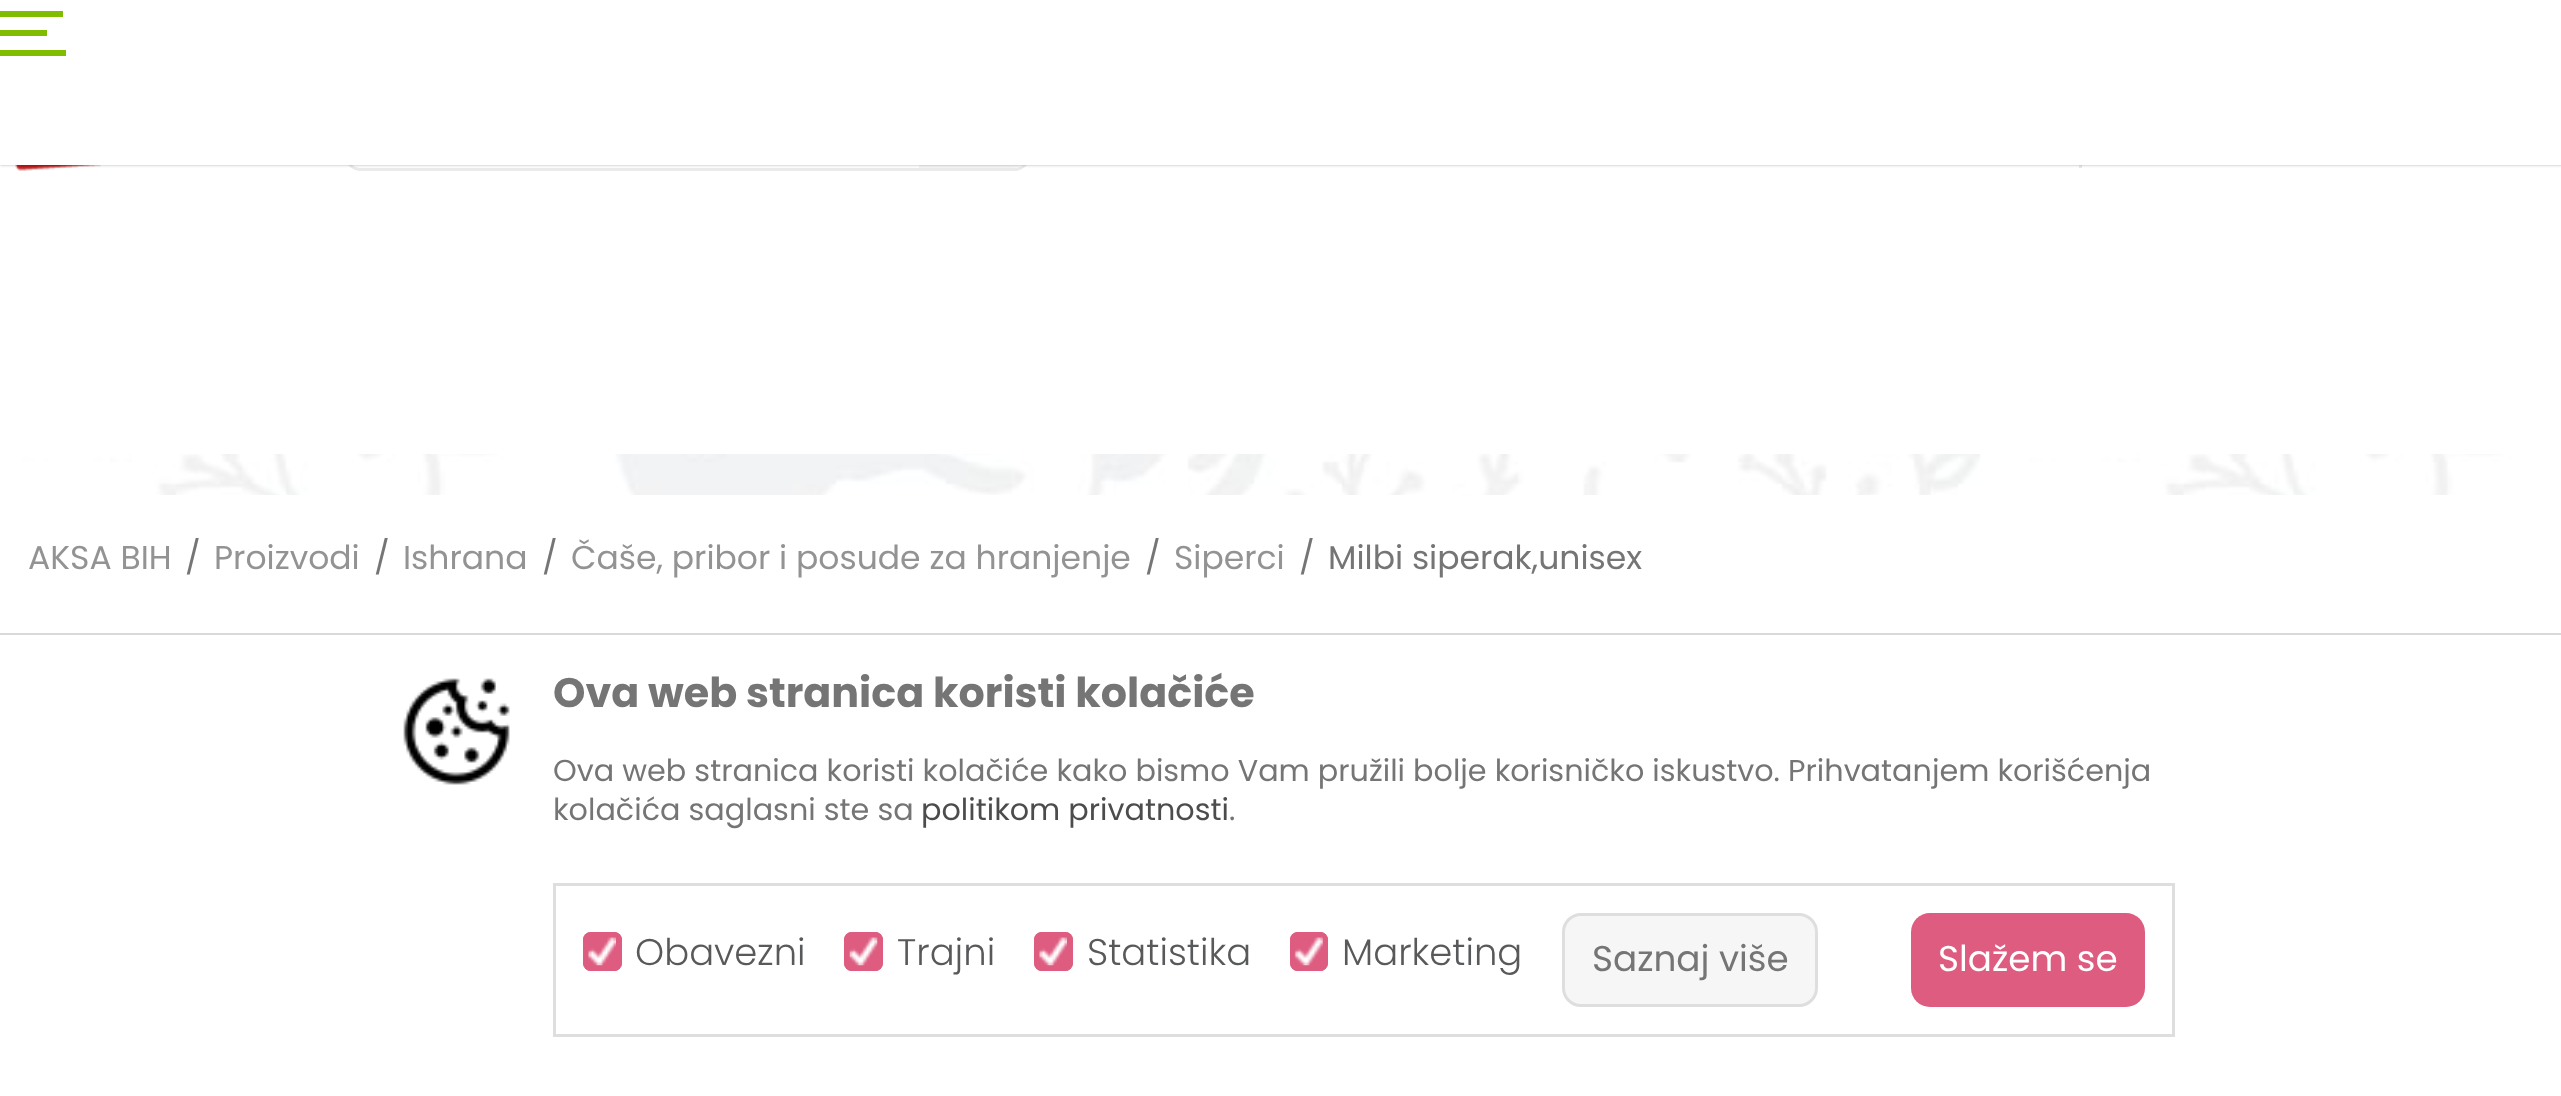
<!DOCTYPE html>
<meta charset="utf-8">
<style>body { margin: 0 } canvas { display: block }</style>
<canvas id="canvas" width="2561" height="1096"></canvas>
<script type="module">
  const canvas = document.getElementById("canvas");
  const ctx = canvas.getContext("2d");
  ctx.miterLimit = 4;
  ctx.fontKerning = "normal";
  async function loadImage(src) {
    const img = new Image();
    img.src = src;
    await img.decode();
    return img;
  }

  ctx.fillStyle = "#ffffff";
  ctx.fillRect(0, 0, 2561, 1096);
  ctx.drawImage(await loadImage("img1.png"), 14, 454, 2547, 41);
  ctx.drawImage(await loadImage("img2.png"), 15, 165, 86, 6);
  ctx.beginPath();
  ctx.roundRect(345.5, 56.5, 684, 113, 15.5);
  ctx.strokeStyle = "#eaeaea";
  ctx.lineWidth = 3;
  ctx.stroke();
  ctx.fillStyle = "#f4f4f4";
  ctx.beginPath();
  ctx.roundRect(919, 58, 110, 110, [0, 17, 17, 0]);
  ctx.fill();
  ctx.fillStyle = "#eaeaea";
  ctx.fillRect(2079, 165, 3, 3);
  ctx.fillStyle = "rgba(0, 0, 0, 0.3)";
  ctx.filter = "blur(1.5px)";
  ctx.beginPath();
  ctx.rect(0, 0, 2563, 165);
  ctx.fill();
  ctx.filter = "none";
  ctx.fillStyle = "#ffffff";
  ctx.fillRect(0, 0, 2561, 165);
  ctx.fillStyle = "#80bc00";
  ctx.fillRect(0, 30, 47, 6);
  ctx.fillRect(0, 11, 63, 6);
  ctx.fillRect(0, 50, 66, 6);
  ctx.font = "33px Poppins";
  ctx.fillStyle = "#939393";
  ctx.fillText("AKSA BIH", 28, 569);
  ctx.fillStyle = "#757575";
  ctx.fillText("/", 185, 569);
  ctx.fillStyle = "#939393";
  ctx.fillText("Proizvodi", 214, 569);
  ctx.fillStyle = "#757575";
  ctx.fillText("/", 374, 569);
  ctx.fillStyle = "#939393";
  ctx.fillText("Ishrana", 403, 569);
  ctx.fillStyle = "#757575";
  ctx.fillText("/", 542, 569);
  ctx.fillStyle = "#939393";
  ctx.fillText("Čaše, pribor i posude za hranjenje", 571, 569);
  ctx.fillStyle = "#757575";
  ctx.fillText("/", 1145, 569);
  ctx.fillStyle = "#939393";
  ctx.fillText("Siperci", 1174, 569);
  ctx.fillStyle = "#757575";
  ctx.fillText("/", 1299, 569);
  ctx.fillText("Milbi siperak,unisex", 1328, 569);
  ctx.strokeStyle = "#d9d9d9";
  ctx.strokeRect(-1.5, 634.5, 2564, 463);
  ctx.fillStyle = "#ffffff";
  ctx.fillRect(0, 635, 2561, 1);
  ctx.drawImage(await loadImage("img3.png"), 403, 678, 107, 107);
  ctx.font = "bold 41.25px Poppins";
  ctx.fillStyle = "#757575";
  ctx.fillText("Ova web stranica koristi kolačiće", 553, 707);
  ctx.font = "30.25px Poppins";
  ctx.fillText("Ova web stranica koristi kolačiće kako bismo Vam pružili bolje korisničko iskustvo. Prihvatanjem korišćenja", 553, 781);
  ctx.fillText("kolačića saglasni ste sa", 553, 820);
  ctx.fillStyle = "#4c4c4c";
  ctx.fillText("politikom privatnosti", 921, 820);
  ctx.fillStyle = "#757575";
  ctx.fillText(".", 1229, 820);
  ctx.strokeStyle = "#dedede";
  ctx.strokeRect(554.5, 884.5, 1619, 151);
  ctx.fillStyle = "#dd5c80";
  ctx.beginPath();
  ctx.roundRect(583, 932, 39, 39, 8);
  ctx.fill();
  ctx.drawImage(await loadImage("img4.png"), 588, 937, 28, 29);
  ctx.beginPath();
  ctx.roundRect(584.5, 933.5, 36, 36, 6.5);
  ctx.strokeStyle = "#dd5c80";
  ctx.stroke();
  ctx.font = "300 37px Poppins";
  ctx.fillStyle = "#58595b";
  ctx.fillText("Obavezni", 635, 965);
  ctx.fillStyle = "#dd5c80";
  ctx.beginPath();
  ctx.roundRect(844, 932, 39, 39, 8);
  ctx.fill();
  ctx.drawImage(await loadImage("img5.png"), 849, 937, 29, 29);
  ctx.beginPath();
  ctx.roundRect(845.5, 933.5, 36, 36, 6.5);
  ctx.stroke();
  ctx.fillStyle = "#58595b";
  ctx.fillText("Trajni", 897, 965);
  ctx.fillStyle = "#dd5c80";
  ctx.beginPath();
  ctx.roundRect(1034, 932, 39, 39, 8);
  ctx.fill();
  ctx.drawImage(await loadImage("img4.png"), 1039, 937, 28, 29);
  ctx.beginPath();
  ctx.roundRect(1035.5, 933.5, 36, 36, 6.5);
  ctx.stroke();
  ctx.fillStyle = "#58595b";
  ctx.fillText("Statistika", 1087, 965);
  ctx.fillStyle = "#dd5c80";
  ctx.beginPath();
  ctx.roundRect(1290, 932, 38, 39, 8);
  ctx.fill();
  ctx.drawImage(await loadImage("img6.png"), 1294, 937, 29, 29);
  ctx.beginPath();
  ctx.roundRect(1291.5, 933.5, 35, 36, 6.5);
  ctx.stroke();
  ctx.fillStyle = "#58595b";
  ctx.fillText("Marketing", 1342, 965);
  ctx.fillStyle = "#f6f6f6";
  ctx.beginPath();
  ctx.roundRect(1563.5, 914.5, 253, 91, 17.5);
  ctx.fill();
  ctx.strokeStyle = "#dedede";
  ctx.stroke();
  ctx.font = "35.75px Poppins";
  ctx.fillStyle = "#757575";
  ctx.fillText("Saznaj više", 1592, 971);
  ctx.fillStyle = "#dd5c80";
  ctx.beginPath();
  ctx.roundRect(1911, 913, 234, 94, 19);
  ctx.fill();
  ctx.fillStyle = "#ffffff";
  ctx.fillText("Slažem se", 1938, 971);
</script>
